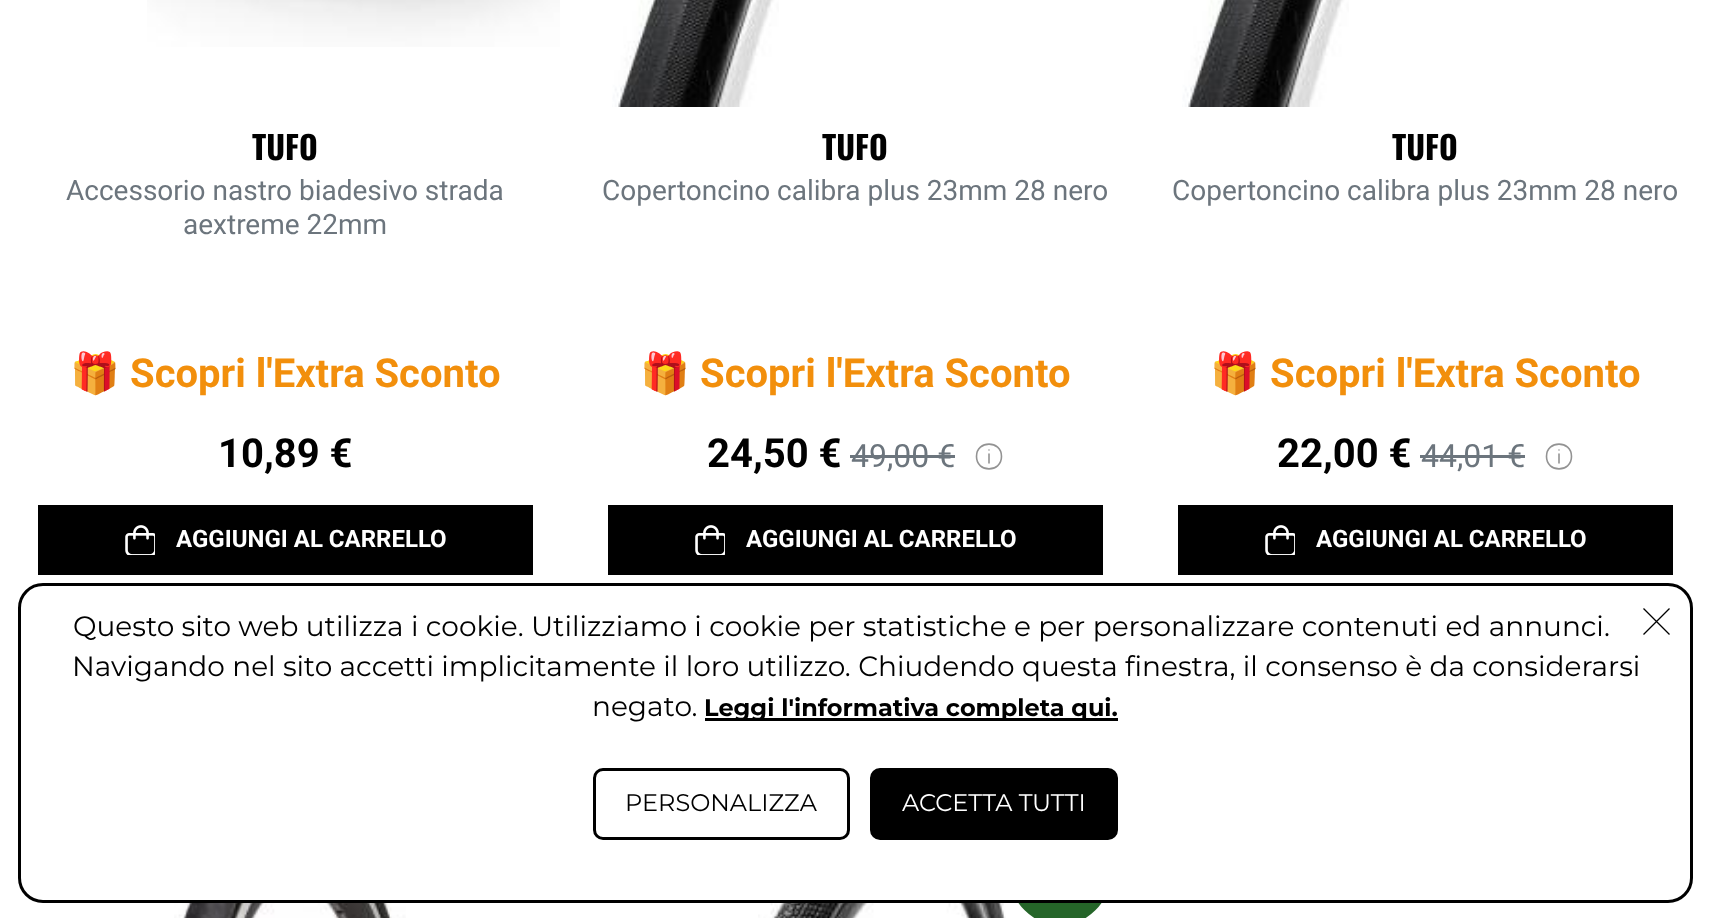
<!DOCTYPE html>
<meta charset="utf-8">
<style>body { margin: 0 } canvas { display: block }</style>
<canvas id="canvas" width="1710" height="918"></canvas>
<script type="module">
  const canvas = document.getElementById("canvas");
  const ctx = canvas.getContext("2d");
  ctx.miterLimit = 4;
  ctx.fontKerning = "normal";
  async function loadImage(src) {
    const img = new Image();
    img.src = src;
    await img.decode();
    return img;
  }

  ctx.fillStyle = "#ffffff";
  ctx.fillRect(0, 0, 1710, 918);
  ctx.drawImage(await loadImage("img1.png"), 147, 0, 413, 47);
  ctx.font = "bold 32px Oswald";
  ctx.fillStyle = "#000000";
  ctx.fillText("TUFO", 252, 160);
  ctx.font = "28px Roboto";
  ctx.fillStyle = "#6c757d";
  ctx.fillText("Accessorio nastro biadesivo strada", 66, 200);
  ctx.fillText("aextreme 22mm", 183, 234);
  ctx.font = "bold 40px Noto Color Emoji";
  ctx.fillStyle = "#f28f0c";
  ctx.fillText("🎁", 70, 387);
  ctx.font = "bold 40px Roboto";
  ctx.fillText("Scopri l'Extra Sconto", 130, 387);
  ctx.fillStyle = "#000000";
  ctx.fillText("10,89 €", 218, 467);
  ctx.fillRect(38, 505, 495, 70);
  ctx.drawImage(await loadImage("img2.png"), 125, 525, 30, 30);
  ctx.font = "bold 24px Roboto";
  ctx.fillStyle = "#ffffff";
  ctx.fillText("AGGIUNGI AL CARRELLO", 176, 547);
  ctx.drawImage(await loadImage("img3.png"), 612, 0, 167, 107);
  ctx.font = "bold 32px Oswald";
  ctx.fillStyle = "#000000";
  ctx.fillText("TUFO", 822, 160);
  ctx.font = "28px Roboto";
  ctx.fillStyle = "#6c757d";
  ctx.fillText("Copertoncino calibra plus 23mm 28 nero", 602, 200);
  ctx.font = "bold 40px Noto Color Emoji";
  ctx.fillStyle = "#f28f0c";
  ctx.fillText("🎁", 640, 387);
  ctx.font = "bold 40px Roboto";
  ctx.fillText("Scopri l'Extra Sconto", 700, 387);
  ctx.fillStyle = "#000000";
  ctx.fillText("24,50 €", 707, 467);
  ctx.font = "32px Roboto";
  ctx.fillStyle = "#6c757d";
  ctx.fillText("49,00 €", 851, 467);
  ctx.fillRect(850, 455, 105, 3);
  ctx.beginPath();
  ctx.moveTo(976.5, 456.5);
  ctx.bezierCurveTo(976.5, 440, 1001.5, 440, 1001.5, 456.5);
  ctx.bezierCurveTo(1001.5, 473, 976.5, 473, 976.5, 456.5);
  ctx.closePath();
  ctx.moveTo(989, 454);
  ctx.lineTo(989, 463);
  ctx.moveTo(989, 450);
  ctx.lineTo(989, 450);
  ctx.strokeStyle = "#939393";
  ctx.lineWidth = 1.6;
  ctx.lineCap = "round";
  ctx.lineJoin = "round";
  ctx.stroke();
  ctx.fillStyle = "#000000";
  ctx.fillRect(608, 505, 495, 70);
  ctx.drawImage(await loadImage("img2.png"), 695, 525, 30, 30);
  ctx.font = "bold 24px Roboto";
  ctx.fillStyle = "#ffffff";
  ctx.fillText("AGGIUNGI AL CARRELLO", 746, 547);
  ctx.drawImage(await loadImage("img4.png"), 1182, 0, 167, 107);
  ctx.font = "bold 32px Oswald";
  ctx.fillStyle = "#000000";
  ctx.fillText("TUFO", 1392, 160);
  ctx.font = "28px Roboto";
  ctx.fillStyle = "#6c757d";
  ctx.fillText("Copertoncino calibra plus 23mm 28 nero", 1172, 200);
  ctx.font = "bold 40px Noto Color Emoji";
  ctx.fillStyle = "#f28f0c";
  ctx.fillText("🎁", 1210, 387);
  ctx.font = "bold 40px Roboto";
  ctx.fillText("Scopri l'Extra Sconto", 1270, 387);
  ctx.fillStyle = "#000000";
  ctx.fillText("22,00 €", 1277, 467);
  ctx.font = "32px Roboto";
  ctx.fillStyle = "#6c757d";
  ctx.fillText("44,01 €", 1421, 467);
  ctx.fillRect(1420, 455, 105, 3);
  ctx.beginPath();
  ctx.moveTo(1546.5, 456.5);
  ctx.bezierCurveTo(1546.5, 440, 1571.5, 440, 1571.5, 456.5);
  ctx.bezierCurveTo(1571.5, 473, 1546.5, 473, 1546.5, 456.5);
  ctx.closePath();
  ctx.moveTo(1559, 454);
  ctx.lineTo(1559, 463);
  ctx.moveTo(1559, 450);
  ctx.lineTo(1559, 450);
  ctx.stroke();
  ctx.fillStyle = "#000000";
  ctx.fillRect(1178, 505, 495, 70);
  ctx.drawImage(await loadImage("img2.png"), 1265, 525, 30, 30);
  ctx.font = "bold 24px Roboto";
  ctx.fillStyle = "#ffffff";
  ctx.fillText("AGGIUNGI AL CARRELLO", 1316, 547);
  ctx.drawImage(await loadImage("img5.png"), 174, 903, 232, 15);
  ctx.drawImage(await loadImage("img6.png"), 758, 903, 248, 15);
  ctx.fillStyle = "#256529";
  ctx.beginPath();
  ctx.arc(1060, 875, 48.5, 0, Math.PI * 2);
  ctx.fill();
  ctx.strokeStyle = "#256529";
  ctx.lineWidth = 3;
  ctx.stroke();
  ctx.fillStyle = "#ffffff";
  ctx.beginPath();
  ctx.roundRect(19.5, 584.5, 1672, 317, 23.5);
  ctx.fill();
  ctx.strokeStyle = "#000000";
  ctx.lineJoin = "miter";
  ctx.stroke();
  ctx.font = "28px Montserrat";
  ctx.fillStyle = "#000000";
  ctx.fillText("Questo sito web utilizza i cookie. Utilizziamo i cookie per statistiche e per personalizzare contenuti ed annunci.", 73, 636);
  ctx.beginPath();
  ctx.moveTo(1643.5, 608.5);
  ctx.lineTo(1669.5, 634.5);
  ctx.moveTo(1669.5, 608.5);
  ctx.lineTo(1643.5, 634.5);
  ctx.lineWidth = 1.3;
  ctx.lineCap = "butt";
  ctx.stroke();
  ctx.fillText("Navigando nel sito accetti implicitamente il loro utilizzo. Chiudendo questa finestra, il consenso è da considerarsi", 72, 676);
  ctx.fillText("negato.", 592, 716);
  ctx.fillRect(705, 718, 413, 3);
  ctx.font = "bold 24px Montserrat";
  ctx.fillText("Leggi l'informativa completa qui.", 704, 716);
  ctx.beginPath();
  ctx.roundRect(594.5, 769.5, 254, 69, 8.5);
  ctx.lineWidth = 3;
  ctx.stroke();
  ctx.font = "24px Montserrat";
  ctx.fillText("PERSONALIZZA", 625, 811);
  ctx.beginPath();
  ctx.roundRect(871.5, 769.5, 245, 69, 8.5);
  ctx.fill();
  ctx.stroke();
  ctx.fillStyle = "#ffffff";
  ctx.fillText("ACCETTA TUTTI", 902, 811);
</script>
